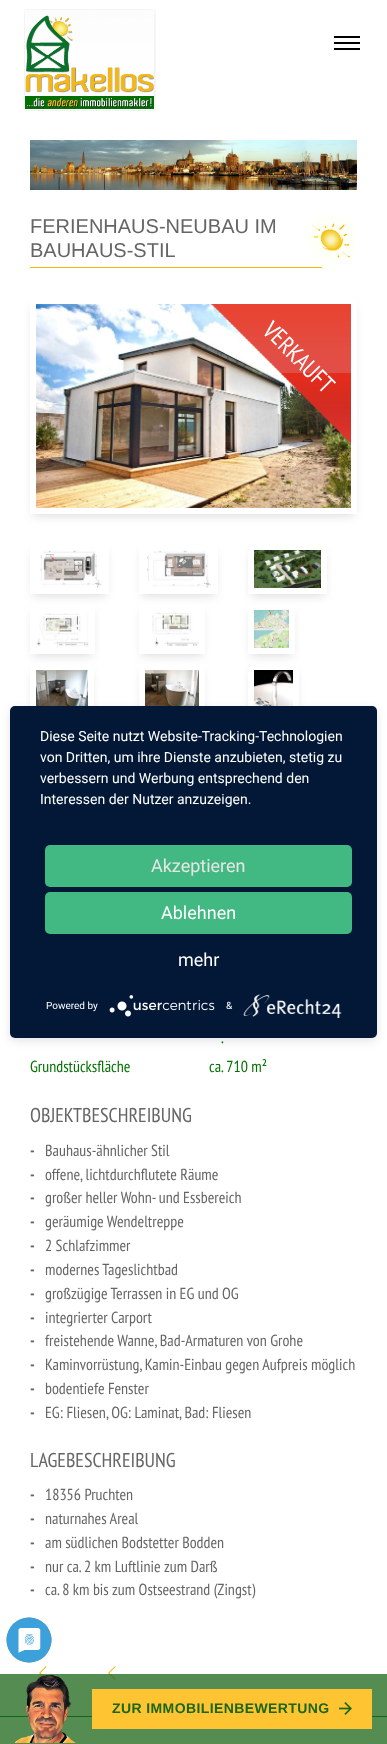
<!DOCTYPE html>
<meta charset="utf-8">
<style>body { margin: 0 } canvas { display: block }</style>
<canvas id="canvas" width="387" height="1744"></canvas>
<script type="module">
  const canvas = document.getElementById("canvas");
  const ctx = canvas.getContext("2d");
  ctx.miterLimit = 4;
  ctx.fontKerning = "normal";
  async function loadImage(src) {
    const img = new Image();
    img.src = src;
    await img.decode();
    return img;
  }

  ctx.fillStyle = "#ffffff";
  ctx.fillRect(0, 0, 387, 1744);
  ctx.drawImage(await loadImage("img1.png"), 24, 9, 132, 102);
  ctx.drawImage(await loadImage("img2.png"), 334, 36, 26, 14);
  ctx.drawImage(await loadImage("img3.png"), 30, 140, 327, 50);
  ctx.fillStyle = "#f3b60d";
  ctx.fillRect(30, 267, 292, 1);
  ctx.font = "20px Liberation Sans";
  ctx.fillStyle = "#656565";
  ctx.fillText("FERIENHAUS-NEUBAU IM", 30, 233);
  ctx.fillText("BAUHAUS-STIL", 30, 257);
  ctx.drawImage(await loadImage("img4.png"), 307, 214, 50, 50);
  ctx.save();
  ctx.beginPath();
  ctx.moveTo(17, 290);
  ctx.lineTo(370, 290);
  ctx.lineTo(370, 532);
  ctx.lineTo(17, 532);
  ctx.closePath();
  ctx.moveTo(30, 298);
  ctx.lineTo(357, 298);
  ctx.lineTo(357, 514);
  ctx.lineTo(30, 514);
  ctx.closePath();
  ctx.clip("evenodd");
  ctx.fillStyle = "#dddddd";
  ctx.filter = "blur(5px)";
  ctx.beginPath();
  ctx.rect(33, 306, 321, 210);
  ctx.fill();
  ctx.filter = "none";
  ctx.restore();
  ctx.drawImage(await loadImage("img5.png"), 36, 304, 315, 204);
  ctx.drawImage(await loadImage("img6.png"), 211, 304, 140, 141);
  ctx.save();
  ctx.beginPath();
  ctx.moveTo(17, 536);
  ctx.lineTo(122, 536);
  ctx.lineTo(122, 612);
  ctx.lineTo(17, 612);
  ctx.closePath();
  ctx.moveTo(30, 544);
  ctx.lineTo(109, 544);
  ctx.lineTo(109, 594);
  ctx.lineTo(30, 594);
  ctx.closePath();
  ctx.clip("evenodd");
  ctx.fillStyle = "#dddddd";
  ctx.filter = "blur(5px)";
  ctx.beginPath();
  ctx.rect(33, 552, 73, 44);
  ctx.fill();
  ctx.filter = "none";
  ctx.restore();
  ctx.drawImage(await loadImage("img7.png"), 40, 550, 62, 38);
  ctx.save();
  ctx.beginPath();
  ctx.moveTo(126, 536);
  ctx.lineTo(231, 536);
  ctx.lineTo(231, 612);
  ctx.lineTo(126, 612);
  ctx.closePath();
  ctx.moveTo(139, 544);
  ctx.lineTo(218, 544);
  ctx.lineTo(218, 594);
  ctx.lineTo(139, 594);
  ctx.closePath();
  ctx.clip("evenodd");
  ctx.fillStyle = "#dddddd";
  ctx.filter = "blur(5px)";
  ctx.beginPath();
  ctx.rect(142, 552, 73, 44);
  ctx.fill();
  ctx.filter = "none";
  ctx.restore();
  ctx.drawImage(await loadImage("img8.png"), 147, 550, 64, 38);
  ctx.save();
  ctx.beginPath();
  ctx.moveTo(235, 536);
  ctx.lineTo(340, 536);
  ctx.lineTo(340, 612);
  ctx.lineTo(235, 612);
  ctx.closePath();
  ctx.moveTo(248, 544);
  ctx.lineTo(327, 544);
  ctx.lineTo(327, 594);
  ctx.lineTo(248, 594);
  ctx.closePath();
  ctx.clip("evenodd");
  ctx.fillStyle = "#dddddd";
  ctx.filter = "blur(5px)";
  ctx.beginPath();
  ctx.rect(251, 552, 73, 44);
  ctx.fill();
  ctx.filter = "none";
  ctx.restore();
  ctx.drawImage(await loadImage("img9.png"), 254, 550, 67, 38);
  ctx.save();
  ctx.beginPath();
  ctx.moveTo(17, 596);
  ctx.lineTo(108, 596);
  ctx.lineTo(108, 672);
  ctx.lineTo(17, 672);
  ctx.closePath();
  ctx.moveTo(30, 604);
  ctx.lineTo(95, 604);
  ctx.lineTo(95, 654);
  ctx.lineTo(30, 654);
  ctx.closePath();
  ctx.clip("evenodd");
  ctx.fillStyle = "#dddddd";
  ctx.filter = "blur(5px)";
  ctx.beginPath();
  ctx.rect(33, 612, 59, 44);
  ctx.fill();
  ctx.filter = "none";
  ctx.restore();
  ctx.drawImage(await loadImage("img10.png"), 36, 613, 53, 35);
  ctx.save();
  ctx.beginPath();
  ctx.moveTo(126, 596);
  ctx.lineTo(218, 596);
  ctx.lineTo(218, 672);
  ctx.lineTo(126, 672);
  ctx.closePath();
  ctx.moveTo(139, 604);
  ctx.lineTo(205, 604);
  ctx.lineTo(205, 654);
  ctx.lineTo(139, 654);
  ctx.closePath();
  ctx.clip("evenodd");
  ctx.fillStyle = "#dddddd";
  ctx.filter = "blur(5px)";
  ctx.beginPath();
  ctx.rect(142, 612, 60, 44);
  ctx.fill();
  ctx.filter = "none";
  ctx.restore();
  ctx.drawImage(await loadImage("img11.png"), 152, 610, 47, 37);
  ctx.save();
  ctx.beginPath();
  ctx.moveTo(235, 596);
  ctx.lineTo(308, 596);
  ctx.lineTo(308, 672);
  ctx.lineTo(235, 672);
  ctx.closePath();
  ctx.moveTo(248, 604);
  ctx.lineTo(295, 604);
  ctx.lineTo(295, 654);
  ctx.lineTo(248, 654);
  ctx.closePath();
  ctx.clip("evenodd");
  ctx.fillStyle = "#dddddd";
  ctx.filter = "blur(5px)";
  ctx.beginPath();
  ctx.rect(251, 612, 41, 44);
  ctx.fill();
  ctx.filter = "none";
  ctx.restore();
  ctx.drawImage(await loadImage("img12.png"), 254, 610, 35, 38);
  ctx.save();
  ctx.beginPath();
  ctx.moveTo(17, 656);
  ctx.lineTo(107, 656);
  ctx.lineTo(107, 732);
  ctx.lineTo(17, 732);
  ctx.closePath();
  ctx.moveTo(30, 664);
  ctx.lineTo(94, 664);
  ctx.lineTo(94, 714);
  ctx.lineTo(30, 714);
  ctx.closePath();
  ctx.clip("evenodd");
  ctx.fillStyle = "#dddddd";
  ctx.filter = "blur(5px)";
  ctx.beginPath();
  ctx.rect(33, 672, 58, 44);
  ctx.fill();
  ctx.filter = "none";
  ctx.restore();
  ctx.drawImage(await loadImage("img13.png"), 36, 670, 52, 36);
  ctx.save();
  ctx.beginPath();
  ctx.moveTo(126, 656);
  ctx.lineTo(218, 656);
  ctx.lineTo(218, 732);
  ctx.lineTo(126, 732);
  ctx.closePath();
  ctx.moveTo(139, 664);
  ctx.lineTo(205, 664);
  ctx.lineTo(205, 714);
  ctx.lineTo(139, 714);
  ctx.closePath();
  ctx.clip("evenodd");
  ctx.fillStyle = "#dddddd";
  ctx.filter = "blur(5px)";
  ctx.beginPath();
  ctx.rect(142, 672, 60, 44);
  ctx.fill();
  ctx.filter = "none";
  ctx.restore();
  ctx.drawImage(await loadImage("img14.png"), 145, 670, 54, 36);
  ctx.save();
  ctx.beginPath();
  ctx.moveTo(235, 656);
  ctx.lineTo(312, 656);
  ctx.lineTo(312, 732);
  ctx.lineTo(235, 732);
  ctx.closePath();
  ctx.moveTo(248, 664);
  ctx.lineTo(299, 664);
  ctx.lineTo(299, 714);
  ctx.lineTo(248, 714);
  ctx.closePath();
  ctx.clip("evenodd");
  ctx.fillStyle = "#dddddd";
  ctx.filter = "blur(5px)";
  ctx.beginPath();
  ctx.rect(251, 672, 45, 44);
  ctx.fill();
  ctx.filter = "none";
  ctx.restore();
  ctx.drawImage(await loadImage("img15.png"), 254, 670, 39, 36);
  ctx.font = "16px PT Sans Narrow";
  ctx.fillStyle = "#037101";
  ctx.fillText(".", 221, 1043);
  ctx.fillText("Grundstücksfläche", 30, 1072);
  ctx.fillText("ca. 710 m²", 209, 1072);
  ctx.font = "20px PT Sans Narrow";
  ctx.fillStyle = "#656565";
  ctx.fillText("OBJEKTBESCHREIBUNG", 30, 1122);
  ctx.font = "bold 16px PT Sans Narrow";
  ctx.fillText("-", 30, 1156);
  ctx.font = "16px PT Sans Narrow";
  ctx.fillText("Bauhaus-ähnlicher Stil", 45, 1156);
  ctx.font = "bold 16px PT Sans Narrow";
  ctx.fillText("-", 30, 1180);
  ctx.font = "16px PT Sans Narrow";
  ctx.fillText("offene, lichtdurchflutete Räume", 45, 1180);
  ctx.font = "bold 16px PT Sans Narrow";
  ctx.fillText("-", 30, 1203);
  ctx.font = "16px PT Sans Narrow";
  ctx.fillText("großer heller Wohn- und Essbereich", 45, 1203);
  ctx.font = "bold 16px PT Sans Narrow";
  ctx.fillText("-", 30, 1227);
  ctx.font = "16px PT Sans Narrow";
  ctx.fillText("geräumige Wendeltreppe", 45, 1227);
  ctx.font = "bold 16px PT Sans Narrow";
  ctx.fillText("-", 30, 1251);
  ctx.font = "16px PT Sans Narrow";
  ctx.fillText("2 Schlafzimmer", 45, 1251);
  ctx.font = "bold 16px PT Sans Narrow";
  ctx.fillText("-", 30, 1275);
  ctx.font = "16px PT Sans Narrow";
  ctx.fillText("modernes Tageslichtbad", 45, 1275);
  ctx.font = "bold 16px PT Sans Narrow";
  ctx.fillText("-", 30, 1299);
  ctx.font = "16px PT Sans Narrow";
  ctx.fillText("großzügige Terrassen in EG und OG", 45, 1299);
  ctx.font = "bold 16px PT Sans Narrow";
  ctx.fillText("-", 30, 1323);
  ctx.font = "16px PT Sans Narrow";
  ctx.fillText("integrierter Carport", 45, 1323);
  ctx.font = "bold 16px PT Sans Narrow";
  ctx.fillText("-", 30, 1346);
  ctx.font = "16px PT Sans Narrow";
  ctx.fillText("freistehende Wanne, Bad-Armaturen von Grohe", 45, 1346);
  ctx.font = "bold 16px PT Sans Narrow";
  ctx.fillText("-", 30, 1370);
  ctx.font = "16px PT Sans Narrow";
  ctx.fillText("Kaminvorrüstung, Kamin-Einbau gegen Aufpreis möglich", 45, 1370);
  ctx.font = "bold 16px PT Sans Narrow";
  ctx.fillText("-", 30, 1394);
  ctx.font = "16px PT Sans Narrow";
  ctx.fillText("bodentiefe Fenster", 45, 1394);
  ctx.font = "bold 16px PT Sans Narrow";
  ctx.fillText("-", 30, 1418);
  ctx.font = "16px PT Sans Narrow";
  ctx.fillText("EG: Fliesen, OG: Laminat, Bad: Fliesen", 45, 1418);
  ctx.font = "20px PT Sans Narrow";
  ctx.fillText("LAGEBESCHREIBUNG", 30, 1467);
  ctx.font = "bold 16px PT Sans Narrow";
  ctx.fillText("-", 30, 1500);
  ctx.font = "16px PT Sans Narrow";
  ctx.fillText("18356 Pruchten", 45, 1500);
  ctx.font = "bold 16px PT Sans Narrow";
  ctx.fillText("-", 30, 1524);
  ctx.font = "16px PT Sans Narrow";
  ctx.fillText("naturnahes Areal", 45, 1524);
  ctx.font = "bold 16px PT Sans Narrow";
  ctx.fillText("-", 30, 1548);
  ctx.font = "16px PT Sans Narrow";
  ctx.fillText("am südlichen Bodstetter Bodden", 45, 1548);
  ctx.font = "bold 16px PT Sans Narrow";
  ctx.fillText("-", 30, 1572);
  ctx.font = "16px PT Sans Narrow";
  ctx.fillText("nur ca. 2 km Luftlinie zum Darß", 45, 1572);
  ctx.font = "bold 16px PT Sans Narrow";
  ctx.fillText("-", 30, 1595);
  ctx.font = "16px PT Sans Narrow";
  ctx.fillText("ca. 8 km bis zum Ostseestrand (Zingst)", 45, 1595);
  ctx.drawImage(await loadImage("img16.png"), 39, 1666, 8, 11);
  ctx.drawImage(await loadImage("img17.png"), 108, 1666, 8, 14);
  ctx.fillStyle = "rgba(0, 0, 0, 0.1)";
  ctx.filter = "blur(5px)";
  ctx.beginPath();
  ctx.roundRect(10, 709, 367, 332, 5);
  ctx.fill();
  ctx.filter = "none";
  ctx.fillStyle = "#021836";
  ctx.beginPath();
  ctx.roundRect(10, 706, 367, 332, 5);
  ctx.fill();
  ctx.font = "14px Roboto";
  ctx.fillStyle = "#ffffff";
  ctx.fillText("Diese Seite nutzt Website-Tracking-Technologien", 40, 741);
  ctx.fillText("von Dritten, um ihre Dienste anzubieten, stetig zu", 40, 762);
  ctx.fillText("verbessern und Werbung entsprechend den", 40, 783);
  ctx.fillText("Interessen der Nutzer anzuzeigen.", 40, 804);
  ctx.fillStyle = "#42b983";
  ctx.beginPath();
  ctx.roundRect(45, 845, 307, 42, 5);
  ctx.fill();
  ctx.font = "18px Roboto";
  ctx.fillStyle = "#e6e6e6";
  ctx.fillText("Akzeptieren", 151, 872);
  ctx.fillStyle = "#42b983";
  ctx.beginPath();
  ctx.roundRect(45, 892, 307, 42, 5);
  ctx.fill();
  ctx.fillStyle = "#ffffff";
  ctx.fillText("Ablehnen", 161, 919);
  ctx.fillText("mehr", 178, 966);
  ctx.font = "10px Roboto";
  ctx.fillText("Powered by", 46, 1009);
  ctx.drawImage(await loadImage("img18.png"), 109, 995, 106, 22);
  ctx.fillText("&", 226, 1009);
  ctx.drawImage(await loadImage("img19.png"), 243, 994, 99, 24);
  ctx.drawImage(await loadImage("img20.png"), 6, 1617, 46, 46);
  ctx.fillStyle = "#037101";
  ctx.fillRect(0, 1716, 387, 1);
  ctx.fillStyle = "rgba(27, 102, 24, 0.75)";
  ctx.fillRect(0, 1674, 387, 70);
  ctx.drawImage(await loadImage("img21.png"), 15, 1675, 61, 68);
  ctx.fillStyle = "#ffc431";
  ctx.fillRect(92, 1689, 280, 40);
  ctx.letterSpacing = "0.4px";
  ctx.font = "bold 14px Liberation Sans";
  ctx.fillStyle = "#1b6618";
  ctx.fillText("ZUR IMMOBILIENBEWERTUNG", 112, 1713);
  ctx.drawImage(await loadImage("img22.png"), 339, 1702, 13, 13);
</script>
